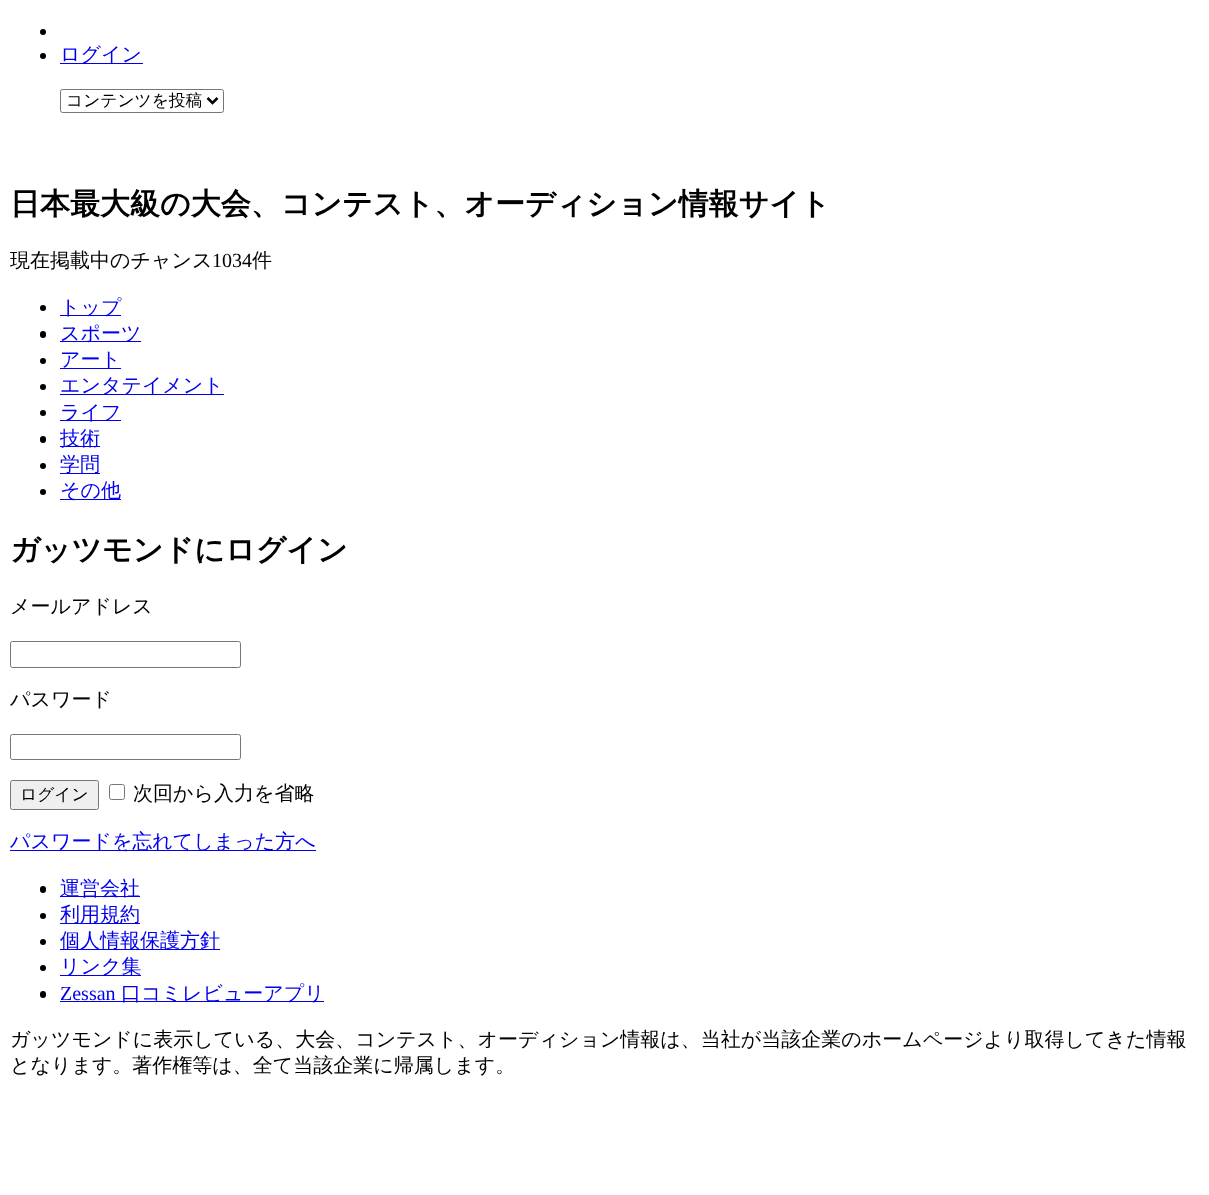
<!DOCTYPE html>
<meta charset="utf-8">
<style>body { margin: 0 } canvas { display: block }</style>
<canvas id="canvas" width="1209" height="1195"></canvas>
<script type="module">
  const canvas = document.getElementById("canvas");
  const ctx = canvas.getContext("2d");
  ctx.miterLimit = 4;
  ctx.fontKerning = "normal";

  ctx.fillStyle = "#ffffff";
  ctx.fillRect(0, 0, 1209, 1195);
  ctx.fillStyle = "#000000";
  ctx.beginPath();
  ctx.arc(43, 32, 3, 0, Math.PI * 2);
  ctx.fill();
  ctx.beginPath();
  ctx.arc(43, 56, 3, 0, Math.PI * 2);
  ctx.fill();
  ctx.fillStyle = "#0000ee";
  ctx.fillRect(60, 63, 83, 1);
  ctx.font = "500 20px WenQuanYi Zen Hei";
  ctx.fillText("ログイン", 60, 61);
  ctx.beginPath();
  ctx.roundRect(60.5, 89.5, 163, 23, 2);
  ctx.strokeStyle = "#767676";
  ctx.stroke();
  ctx.beginPath();
  ctx.moveTo(207.5, 98);
  ctx.lineTo(212.5, 103);
  ctx.lineTo(217.5, 98);
  ctx.strokeStyle = "#000000";
  ctx.lineWidth = 2.5;
  ctx.stroke();
  ctx.font = "500 16.75px WenQuanYi Zen Hei";
  ctx.fillStyle = "#000000";
  ctx.fillText("コンテンツを投稿", 66, 106);
  ctx.font = "bold 30px WenQuanYi Zen Hei";
  ctx.fillText("日本最大級の大会、コンテスト、オーディション情報サイト", 10, 214);
  ctx.font = "500 20px WenQuanYi Zen Hei";
  ctx.fillText("現在掲載中のチャンス", 10, 267);
  ctx.font = "20px Liberation Serif";
  ctx.fillText("1034", 212, 267);
  ctx.font = "500 20px WenQuanYi Zen Hei";
  ctx.fillText("件", 252, 267);
  ctx.beginPath();
  ctx.arc(43, 308, 3, 0, Math.PI * 2);
  ctx.fill();
  ctx.fillStyle = "#0000ee";
  ctx.fillRect(60, 315, 61, 1);
  ctx.fillText("トップ", 60, 314);
  ctx.fillStyle = "#000000";
  ctx.beginPath();
  ctx.roundRect(40, 331, 6, 7, 3);
  ctx.fill();
  ctx.fillStyle = "#0000ee";
  ctx.fillRect(60, 341, 81, 1);
  ctx.fillText("スポーツ", 60, 340);
  ctx.fillStyle = "#000000";
  ctx.beginPath();
  ctx.arc(43, 361, 3, 0, Math.PI * 2);
  ctx.fill();
  ctx.fillStyle = "#0000ee";
  ctx.fillRect(60, 368, 61, 1);
  ctx.fillText("アート", 60, 366);
  ctx.fillStyle = "#000000";
  ctx.beginPath();
  ctx.arc(43, 387, 3, 0, Math.PI * 2);
  ctx.fill();
  ctx.fillStyle = "#0000ee";
  ctx.fillRect(60, 394, 164, 1);
  ctx.fillText("エンタテイメント", 60, 392);
  ctx.fillStyle = "#000000";
  ctx.beginPath();
  ctx.arc(43, 413, 3, 0, Math.PI * 2);
  ctx.fill();
  ctx.fillStyle = "#0000ee";
  ctx.fillRect(60, 420, 61, 1);
  ctx.fillText("ライフ", 60, 419);
  ctx.fillStyle = "#000000";
  ctx.beginPath();
  ctx.roundRect(40, 436, 6, 7, 3);
  ctx.fill();
  ctx.fillStyle = "#0000ee";
  ctx.fillRect(60, 446, 40, 1);
  ctx.fillText("技術", 60, 445);
  ctx.fillStyle = "#000000";
  ctx.beginPath();
  ctx.arc(43, 466, 3, 0, Math.PI * 2);
  ctx.fill();
  ctx.fillStyle = "#0000ee";
  ctx.fillRect(60, 473, 40, 1);
  ctx.fillText("学問", 60, 471);
  ctx.fillStyle = "#000000";
  ctx.beginPath();
  ctx.arc(43, 492, 3, 0, Math.PI * 2);
  ctx.fill();
  ctx.fillStyle = "#0000ee";
  ctx.fillRect(60, 499, 61, 1);
  ctx.fillText("その他", 60, 497);
  ctx.font = "bold 30px WenQuanYi Zen Hei";
  ctx.fillStyle = "#000000";
  ctx.fillText("ガッツモンドにログイン", 10, 560);
  ctx.font = "500 20px WenQuanYi Zen Hei";
  ctx.fillText("メールアドレス", 10, 613);
  ctx.beginPath();
  ctx.roundRect(10.5, 641.5, 230, 26, 2);
  ctx.strokeStyle = "#767676";
  ctx.lineWidth = 1;
  ctx.stroke();
  ctx.fillText("パスワード", 10, 706);
  ctx.beginPath();
  ctx.roundRect(10.5, 734.5, 230, 25, 2);
  ctx.stroke();
  ctx.fillStyle = "#efefef";
  ctx.beginPath();
  ctx.roundRect(10.5, 780.5, 88, 29, 2);
  ctx.fill();
  ctx.stroke();
  ctx.font = "500 16.75px WenQuanYi Zen Hei";
  ctx.fillStyle = "#000000";
  ctx.fillText("ログイン", 20, 800);
  ctx.beginPath();
  ctx.roundRect(109.5, 784.5, 15, 15, 2);
  ctx.stroke();
  ctx.font = "500 20px WenQuanYi Zen Hei";
  ctx.fillText("次回から入力を省略", 133, 800);
  ctx.fillStyle = "#0000ee";
  ctx.fillRect(10, 850, 306, 1);
  ctx.fillText("パスワードを忘れてしまった方へ", 10, 848);
  ctx.fillStyle = "#000000";
  ctx.beginPath();
  ctx.roundRect(40, 886, 6, 7, 3);
  ctx.fill();
  ctx.fillStyle = "#0000ee";
  ctx.fillRect(60, 896, 80, 1);
  ctx.fillText("運営会社", 60, 895);
  ctx.fillStyle = "#000000";
  ctx.beginPath();
  ctx.arc(43, 916, 3, 0, Math.PI * 2);
  ctx.fill();
  ctx.fillStyle = "#0000ee";
  ctx.fillRect(60, 923, 80, 1);
  ctx.fillText("利用規約", 60, 921);
  ctx.fillStyle = "#000000";
  ctx.beginPath();
  ctx.arc(43, 942, 3, 0, Math.PI * 2);
  ctx.fill();
  ctx.fillStyle = "#0000ee";
  ctx.fillRect(60, 949, 160, 1);
  ctx.fillText("個人情報保護方針", 60, 947);
  ctx.fillStyle = "#000000";
  ctx.beginPath();
  ctx.arc(43, 968, 3, 0, Math.PI * 2);
  ctx.fill();
  ctx.fillStyle = "#0000ee";
  ctx.fillRect(60, 975, 81, 1);
  ctx.fillText("リンク集", 60, 973);
  ctx.fillStyle = "#000000";
  ctx.beginPath();
  ctx.roundRect(40, 991, 6, 7, 3);
  ctx.fill();
  ctx.font = "20px Liberation Serif";
  ctx.fillStyle = "#0000ee";
  ctx.fillText("Zessan", 60, 1000);
  ctx.fillRect(60, 1001, 264, 1);
  ctx.font = "500 20px WenQuanYi Zen Hei";
  ctx.fillText("口コミレビューアプリ", 121, 1000);
  ctx.fillStyle = "#000000";
  ctx.fillText("ガッツモンドに表示している、大会、コンテスト、オーディション情報は、当社が当該企業のホームページより取得してきた情報", 10, 1046);
  ctx.fillText("となります。著作権等は、全て当該企業に帰属します。", 10, 1072);
</script>
